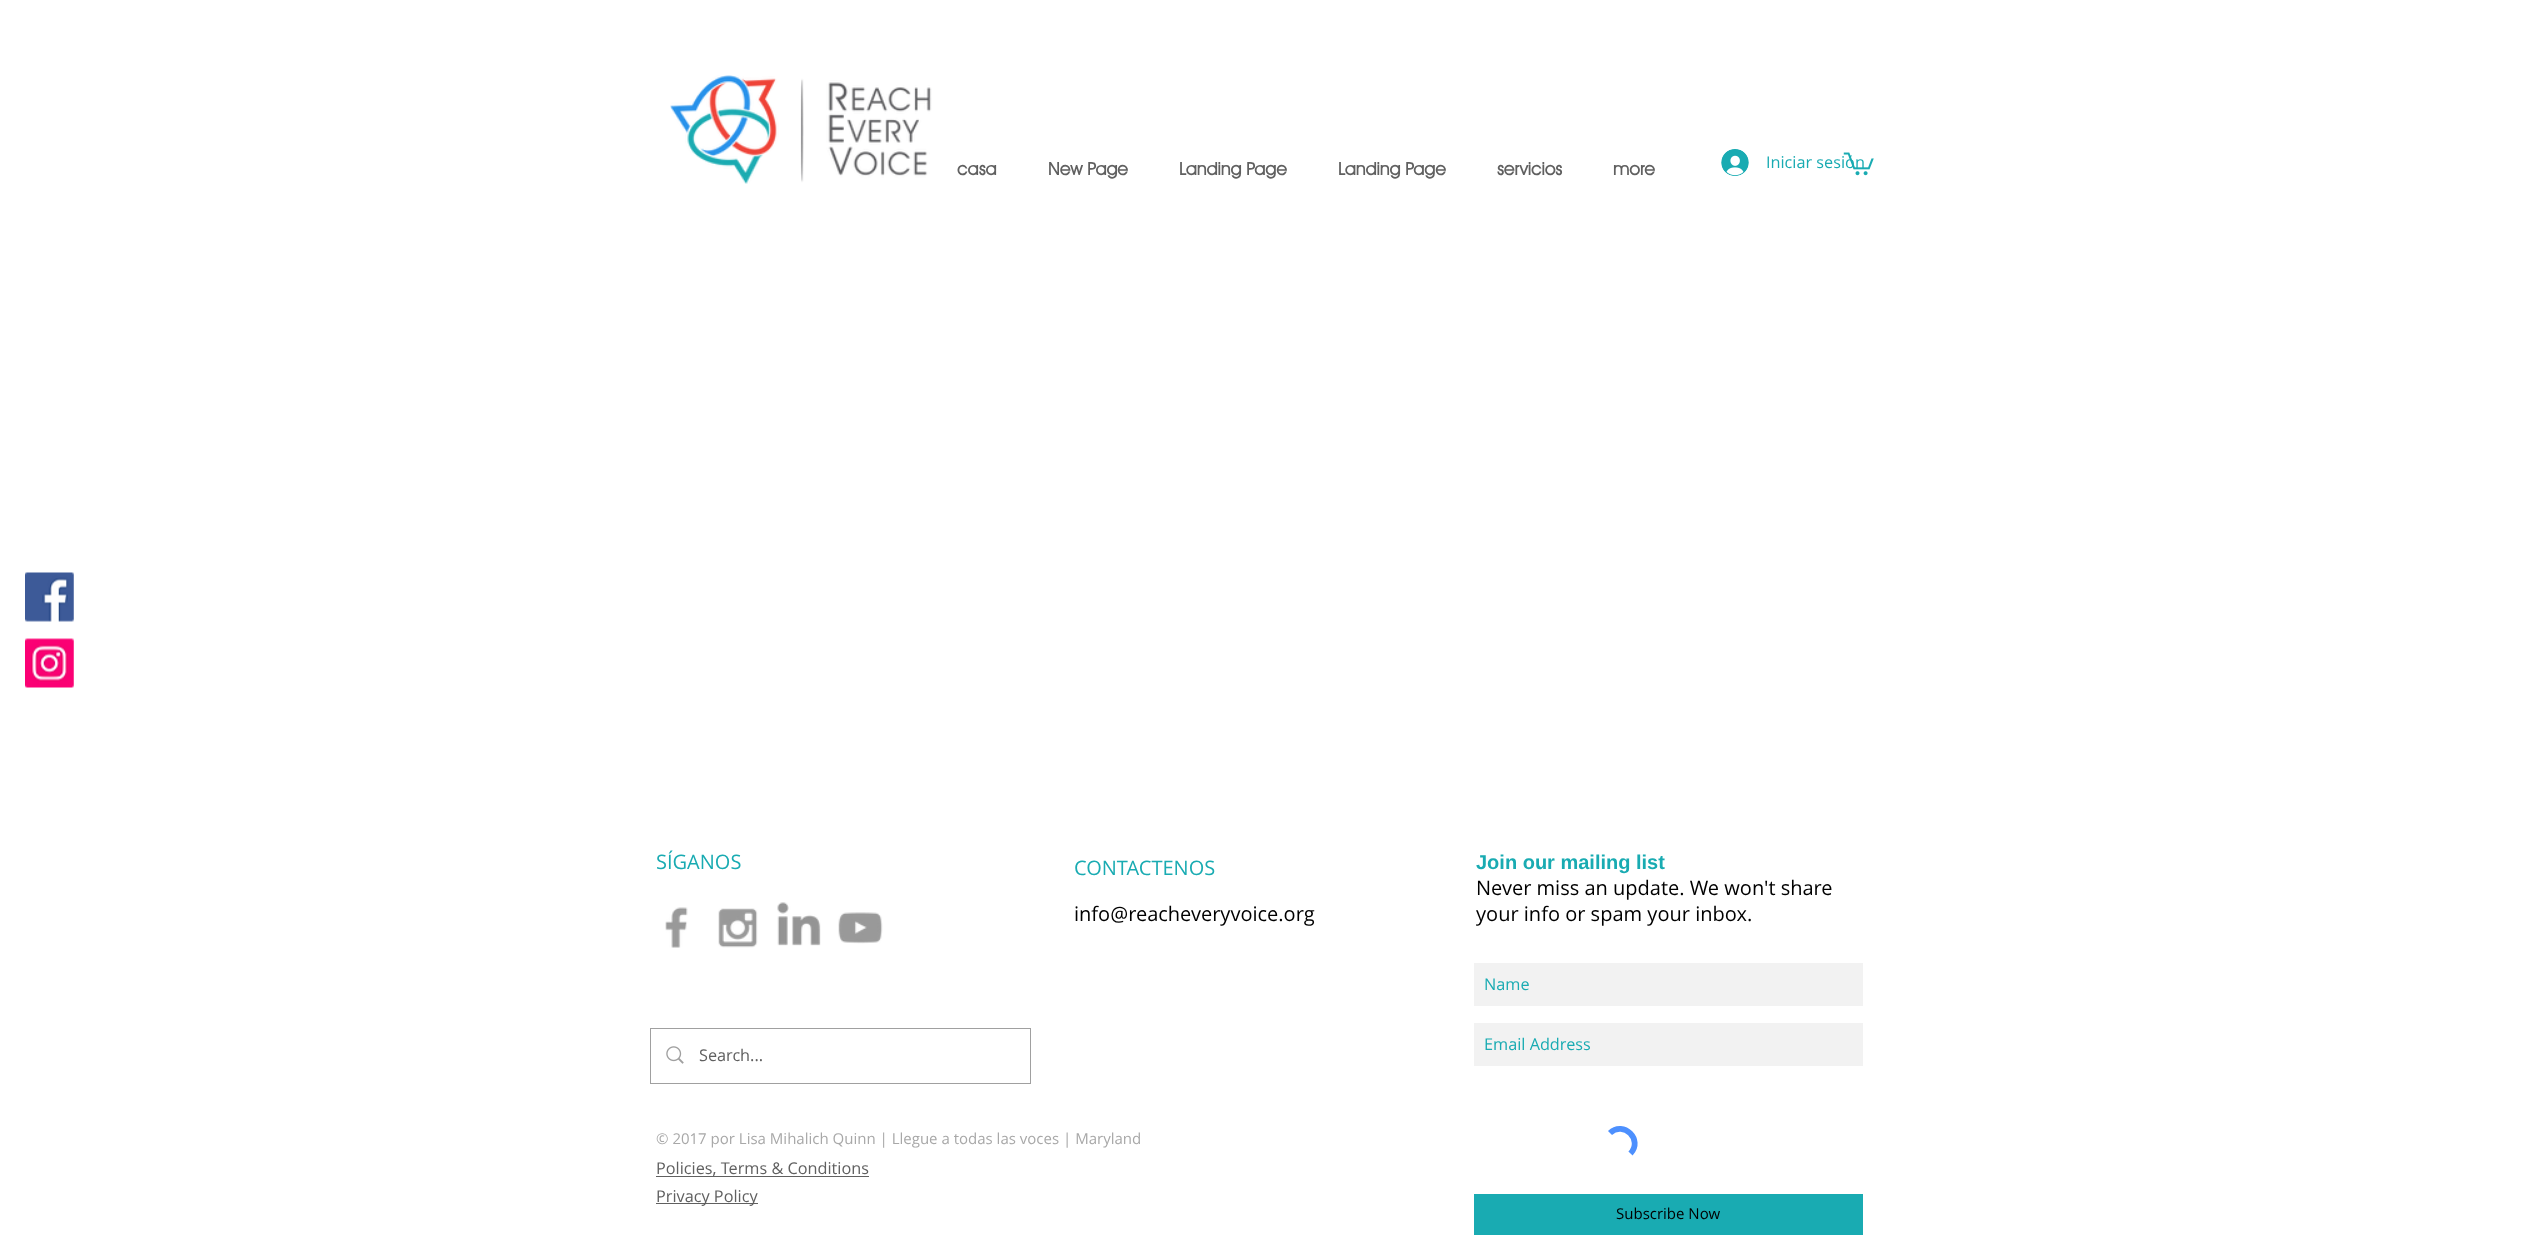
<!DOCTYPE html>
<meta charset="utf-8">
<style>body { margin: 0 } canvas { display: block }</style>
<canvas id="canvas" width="2537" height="1260"></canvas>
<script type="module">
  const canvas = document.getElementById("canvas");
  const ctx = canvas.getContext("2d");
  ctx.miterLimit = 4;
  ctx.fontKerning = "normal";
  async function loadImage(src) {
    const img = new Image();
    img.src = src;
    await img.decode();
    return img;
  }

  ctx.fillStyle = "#ffffff";
  ctx.fillRect(0, 0, 2537, 1260);
  ctx.drawImage(await loadImage("img1.png"), 670, 75, 262, 109);
  ctx.font = "16.25px Open Sans";
  ctx.fillStyle = "#19abb2";
  ctx.fillText("Iniciar sesión", 1766, 168);
  ctx.drawImage(await loadImage("img2.png"), 1843, 152, 31, 24);
  ctx.font = "bold 17.5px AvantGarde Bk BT";
  ctx.fillStyle = "#606060";
  ctx.fillText("casa", 957, 175);
  ctx.fillText("New Page", 1048, 175);
  ctx.fillText("Landing Page", 1179, 175);
  ctx.fillText("Landing Page", 1338, 175);
  ctx.fillText("servicios", 1497, 175);
  ctx.fillText("more", 1613, 175);
  ctx.drawImage(await loadImage("img3.png"), 1721, 149, 28, 27);
  ctx.drawImage(await loadImage("img4.png"), 25, 572, 49, 50);
  ctx.drawImage(await loadImage("img5.png"), 25, 638, 49, 50);
  ctx.font = "20px Open Sans";
  ctx.fillStyle = "#19abb2";
  ctx.fillText("SÍGANOS", 656, 869);
  ctx.fillText("CONTACTENOS", 1074, 875);
  ctx.font = "bold 20px Liberation Sans";
  ctx.fillText("Join our mailing list", 1476, 869);
  ctx.font = "20px Open Sans";
  ctx.fillStyle = "#000000";
  ctx.fillText("Never miss an update. We won't share", 1476, 895);
  ctx.fillText("your info or spam your inbox.", 1476, 921);
  ctx.fillStyle = "#f2f2f2";
  ctx.fillRect(1474, 963, 389, 43);
  ctx.font = "16.25px Open Sans";
  ctx.fillStyle = "#19abb2";
  ctx.fillText("Name", 1484, 990);
  ctx.fillStyle = "#f2f2f2";
  ctx.fillRect(1474, 1023, 389, 43);
  ctx.fillStyle = "#19abb2";
  ctx.fillText("Email Address", 1484, 1050);
  ctx.beginPath();
  ctx.moveTo(1610, 1133);
  ctx.bezierCurveTo(1623.5, 1120, 1643.5, 1140, 1630.5, 1153.5);
  ctx.strokeStyle = "#4d90fe";
  ctx.lineWidth = 5.8;
  ctx.stroke();
  ctx.fillRect(1474, 1194, 389, 41);
  ctx.font = "15px Open Sans";
  ctx.fillStyle = "#000000";
  ctx.fillText("Subscribe Now", 1616, 1219);
  ctx.drawImage(await loadImage("img6.png"), 665, 907, 23, 41);
  ctx.drawImage(await loadImage("img7.png"), 718, 908, 40, 40);
  ctx.drawImage(await loadImage("img8.png"), 777, 902, 44, 44);
  ctx.drawImage(await loadImage("img9.png"), 838, 912, 45, 32);
  ctx.font = "20px Open Sans";
  ctx.fillText("info@reacheveryvoice.org", 1074, 921);
  ctx.strokeStyle = "#a0a0a0";
  ctx.lineWidth = 1;
  ctx.strokeRect(650.5, 1028.5, 380, 55);
  ctx.drawImage(await loadImage("img10.png"), 666, 1046, 18, 18);
  ctx.font = "16.25px Open Sans";
  ctx.fillStyle = "#606060";
  ctx.fillText("Search...", 699, 1061);
  ctx.font = "15px Open Sans";
  ctx.fillStyle = "#a8a8a8";
  ctx.fillText("© 2017 por Lisa Mihalich Quinn | Llegue a todas las voces | Maryland", 656, 1144);
  ctx.fillStyle = "#606060";
  ctx.fillRect(656, 1176, 213, 1);
  ctx.font = "16.25px Open Sans";
  ctx.fillText("Policies, Terms & Conditions", 656, 1174);
  ctx.fillRect(656, 1203, 102, 1);
  ctx.fillText("Privacy Policy", 656, 1202);
</script>
